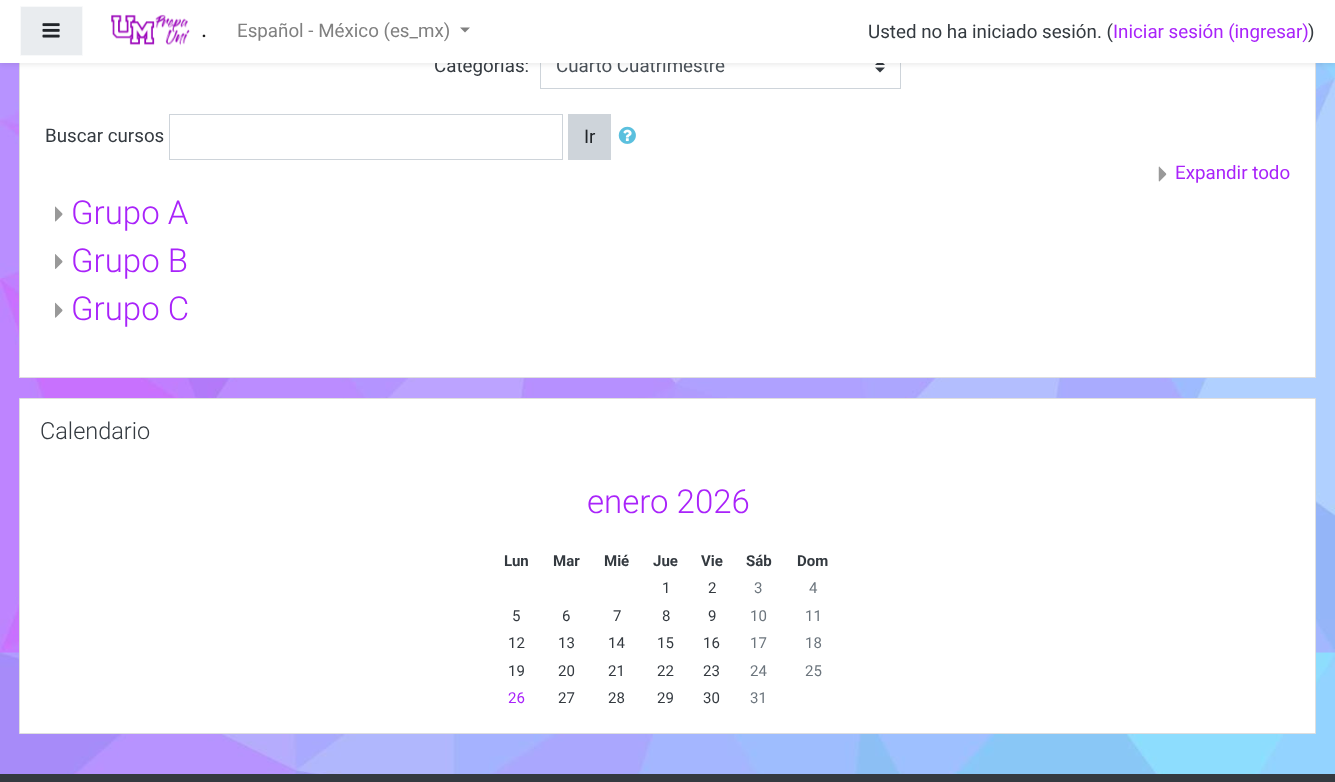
<!DOCTYPE html>
<meta charset="utf-8">
<style>body { margin: 0 } canvas { display: block }</style>
<canvas id="canvas" width="1335" height="782"></canvas>
<script type="module">
  const canvas = document.getElementById("canvas");
  const ctx = canvas.getContext("2d");
  ctx.miterLimit = 4;
  ctx.fontKerning = "normal";
  async function loadImage(src) {
    const img = new Image();
    img.src = src;
    await img.decode();
    return img;
  }

  ctx.fillStyle = "#ffffff";
  ctx.fillRect(0, 0, 1335, 782);
  ctx.drawImage(await loadImage("img1.png"), 0, 63, 1335, 711);
  ctx.fillRect(20, 63, 1295, 314);
  ctx.strokeStyle = "#dfdfdf";
  ctx.strokeRect(19.5, 4.5, 1296, 373);
  ctx.drawImage(await loadImage("img4.png"), 875, 63, 10, 10);
  ctx.strokeStyle = "#ced4da";
  ctx.strokeRect(540.5, 44.5, 360, 44);
  ctx.fillStyle = "rgba(0, 0, 0, 0.08)";
  ctx.filter = "blur(2.5px)";
  ctx.beginPath();
  ctx.rect(0, 3, 1335, 62);
  ctx.fill();
  ctx.filter = "none";
  ctx.font = "18.75px Roboto";
  ctx.fillStyle = "#343a40";
  ctx.fillText("Categorías:", 434, 72);
  ctx.fillStyle = "#495057";
  ctx.fillText("Cuarto Cuatrimestre", 556, 72);
  ctx.fillStyle = "#ffffff";
  ctx.fillRect(0, 0, 1335, 63);
  ctx.fillStyle = "#e9ecef";
  ctx.beginPath();
  ctx.rect(20.5, 6.5, 62, 49);
  ctx.fill();
  ctx.strokeStyle = "#f8f9fa";
  ctx.stroke();
  ctx.drawImage(await loadImage("img2.png"), 42, 23, 18, 15);
  ctx.drawImage(await loadImage("img3.png"), 111, 14, 79, 32);
  ctx.font = "23.5px Roboto";
  ctx.fillStyle = "#1a1a1a";
  ctx.fillText(".", 201, 37);
  ctx.font = "18.75px Roboto";
  ctx.fillStyle = "#808080";
  ctx.fillText("Español - México (es_mx)", 237, 37);
  ctx.beginPath();
  ctx.moveTo(460, 27.5);
  ctx.lineTo(470, 27.5);
  ctx.lineTo(465, 32.5);
  ctx.closePath();
  ctx.fill();
  ctx.fillStyle = "#343a40";
  ctx.fillText("Usted no ha iniciado sesión. (", 868, 38);
  ctx.fillStyle = "#a923fa";
  ctx.fillText("Iniciar sesión (ingresar)", 1113, 38);
  ctx.fillStyle = "#343a40";
  ctx.fillText(")", 1308, 38);
  ctx.fillText("Buscar cursos", 45, 142);
  ctx.strokeStyle = "#ced4da";
  ctx.strokeRect(169.5, 114.5, 393, 45);
  ctx.fillStyle = "#ced4da";
  ctx.fillRect(568, 114, 43, 46);
  ctx.fillStyle = "#212529";
  ctx.fillText("Ir", 584, 143);
  ctx.drawImage(await loadImage("img5.png"), 618, 126, 18, 18);
  ctx.drawImage(await loadImage("img6.png"), 1158, 166, 9, 16);
  ctx.fillStyle = "#a923fa";
  ctx.fillText("Expandir todo", 1175, 179);
  ctx.drawImage(await loadImage("img7.png"), 55, 206, 8, 16);
  ctx.font = "300 33px Roboto";
  ctx.fillText("Grupo A", 71, 224);
  ctx.drawImage(await loadImage("img8.png"), 55, 254, 8, 15);
  ctx.fillText("Grupo B", 71, 272);
  ctx.drawImage(await loadImage("img9.png"), 55, 302, 8, 16);
  ctx.fillText("Grupo C", 71, 320);
  ctx.fillStyle = "#ffffff";
  ctx.beginPath();
  ctx.rect(19.5, 398.5, 1296, 335);
  ctx.fill();
  ctx.strokeStyle = "#dfdfdf";
  ctx.stroke();
  ctx.font = "300 23.5px Roboto";
  ctx.fillStyle = "#343a40";
  ctx.fillText("Calendario", 40, 439);
  ctx.font = "300 33px Roboto";
  ctx.fillStyle = "#a923fa";
  ctx.fillText("enero 2026", 587, 513);
  ctx.font = "bold 15px Roboto";
  ctx.fillStyle = "#343a40";
  ctx.fillText("Lun", 504, 566);
  ctx.fillText("Mar", 553, 566);
  ctx.fillText("Mié", 604, 566);
  ctx.fillText("Jue", 653, 566);
  ctx.fillText("Vie", 701, 566);
  ctx.fillText("Sáb", 746, 566);
  ctx.fillText("Dom", 797, 566);
  ctx.font = "15px Roboto";
  ctx.fillText("1", 662, 593);
  ctx.fillText("2", 708, 593);
  ctx.fillStyle = "#6c757d";
  ctx.fillText("3", 754, 593);
  ctx.fillText("4", 809, 593);
  ctx.fillStyle = "#343a40";
  ctx.fillText("5", 512, 621);
  ctx.fillText("6", 562, 621);
  ctx.fillText("7", 613, 621);
  ctx.fillText("8", 662, 621);
  ctx.fillText("9", 708, 621);
  ctx.fillStyle = "#6c757d";
  ctx.fillText("10", 750, 621);
  ctx.fillText("11", 805, 621);
  ctx.fillStyle = "#343a40";
  ctx.fillText("12", 508, 648);
  ctx.fillText("13", 558, 648);
  ctx.fillText("14", 608, 648);
  ctx.fillText("15", 657, 648);
  ctx.fillText("16", 703, 648);
  ctx.fillStyle = "#6c757d";
  ctx.fillText("17", 750, 648);
  ctx.fillText("18", 805, 648);
  ctx.fillStyle = "#343a40";
  ctx.fillText("19", 508, 676);
  ctx.fillText("20", 558, 676);
  ctx.fillText("21", 608, 676);
  ctx.fillText("22", 657, 676);
  ctx.fillText("23", 703, 676);
  ctx.fillStyle = "#6c757d";
  ctx.fillText("24", 750, 676);
  ctx.fillText("25", 805, 676);
  ctx.fillStyle = "#a923fa";
  ctx.fillText("26", 508, 703);
  ctx.fillStyle = "#343a40";
  ctx.fillText("27", 558, 703);
  ctx.fillText("28", 608, 703);
  ctx.fillText("29", 657, 703);
  ctx.fillText("30", 703, 703);
  ctx.fillStyle = "#6c757d";
  ctx.fillText("31", 750, 703);
  ctx.fillStyle = "#343a40";
  ctx.fillRect(0, 774, 1335, 8);
</script>
